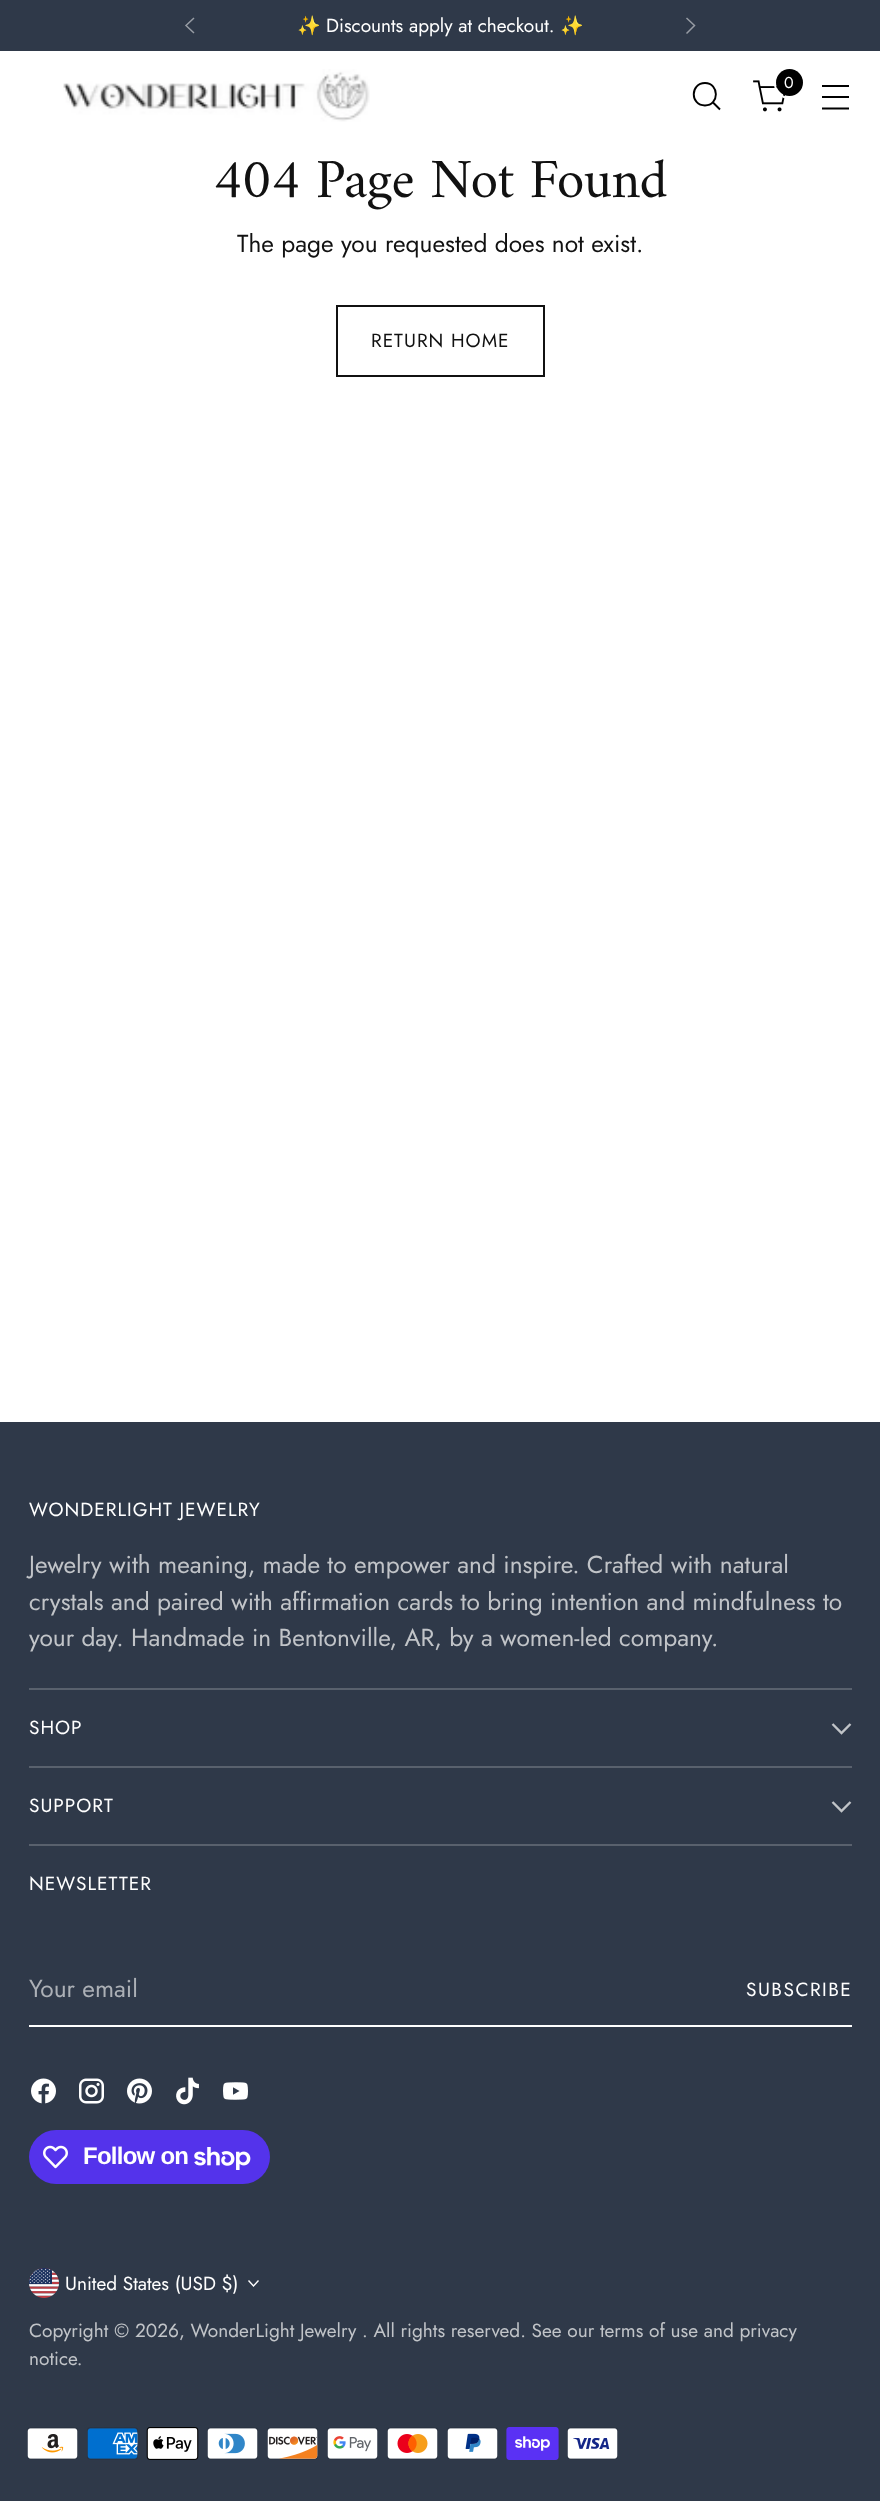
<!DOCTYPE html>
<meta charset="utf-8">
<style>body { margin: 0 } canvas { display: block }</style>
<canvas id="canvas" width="880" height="2501"></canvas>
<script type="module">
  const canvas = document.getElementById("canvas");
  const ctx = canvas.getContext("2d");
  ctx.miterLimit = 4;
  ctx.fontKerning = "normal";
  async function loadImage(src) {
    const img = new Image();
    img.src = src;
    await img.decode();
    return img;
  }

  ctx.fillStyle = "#ffffff";
  ctx.fillRect(0, 0, 880, 2501);
  ctx.fillStyle = "#2f3949";
  ctx.fillRect(0, 0, 880, 51);
  ctx.font = "19.05px Noto Color Emoji";
  ctx.fillStyle = "#ffffff";
  ctx.fillText("✨", 297, 32);
  ctx.font = "19.05px Jost";
  ctx.fillText("Discounts apply at checkout.", 326, 32);
  ctx.font = "19.05px Noto Color Emoji";
  ctx.fillText("✨", 560, 32);
  ctx.beginPath();
  ctx.moveTo(194, 18);
  ctx.lineTo(186, 25.5);
  ctx.lineTo(194, 33);
  ctx.strokeStyle = "#979ca4";
  ctx.lineWidth = 1.5;
  ctx.stroke();
  ctx.beginPath();
  ctx.moveTo(686.5, 33.5);
  ctx.lineTo(694.5, 25.5);
  ctx.lineTo(686.5, 18);
  ctx.stroke();
  ctx.drawImage(await loadImage("img1.png"), 63, 69, 307, 53);
  ctx.beginPath();
  ctx.moveTo(705, 105.5);
  ctx.bezierCurveTo(719.5, 105.5, 719.5, 83, 705, 83);
  ctx.bezierCurveTo(690, 83, 690, 105.5, 705, 105.5);
  ctx.closePath();
  ctx.strokeStyle = "#000000";
  ctx.lineWidth = 1.9;
  ctx.lineCap = "round";
  ctx.stroke();
  ctx.beginPath();
  ctx.moveTo(713, 102.5);
  ctx.lineTo(720, 109.5);
  ctx.lineCap = "butt";
  ctx.stroke();
  ctx.drawImage(await loadImage("img2.png"), 753, 80, 32, 32);
  ctx.beginPath();
  ctx.roundRect(775, 69, 30, 29, 14.5);
  ctx.strokeStyle = "#ffffff";
  ctx.lineWidth = 2;
  ctx.stroke();
  ctx.fillStyle = "#000000";
  ctx.beginPath();
  ctx.arc(789.5, 82.5, 13.5, 0, Math.PI * 2);
  ctx.fill();
  ctx.font = "16px Jost";
  ctx.fillStyle = "#ffffff";
  ctx.fillText("0", 784, 88);
  ctx.beginPath();
  ctx.moveTo(822, 97);
  ctx.lineTo(849, 97);
  ctx.moveTo(822, 86);
  ctx.lineTo(849, 86);
  ctx.moveTo(822, 108.5);
  ctx.lineTo(849, 108.5);
  ctx.strokeStyle = "#000000";
  ctx.lineWidth = 1.9;
  ctx.stroke();
  ctx.letterSpacing = "-0.6px";
  ctx.font = "55.75px Amiri";
  ctx.fillStyle = "#111111";
  ctx.fillText("404 Page Not Found", 213, 197);
  ctx.letterSpacing = "0px";
  ctx.font = "24.5px Jost";
  ctx.fillText("The page you requested does not exist.", 237, 252);
  ctx.strokeStyle = "#111111";
  ctx.lineWidth = 2;
  ctx.strokeRect(337, 306, 207, 70);
  ctx.letterSpacing = "1px";
  ctx.font = "19.05px Jost";
  ctx.fillText("RETURN HOME", 371, 347);
  ctx.fillStyle = "#2f3949";
  ctx.fillRect(0, 1422, 880, 1079);
  ctx.fillStyle = "#59616d";
  ctx.fillRect(29, 1688, 823, 2);
  ctx.fillStyle = "#ffffff";
  ctx.fillText("WONDERLIGHT JEWELRY", 29, 1516);
  ctx.letterSpacing = "0px";
  ctx.font = "24.5px Jost";
  ctx.fillStyle = "#c1c4c8";
  ctx.fillText("Jewelry with meaning, made to empower and inspire. Crafted with natural", 29, 1573);
  ctx.fillText("crystals and paired with affirmation cards to bring intention and mindfulness to", 29, 1610);
  ctx.fillText("your day. Handmade in Bentonville, AR, by a women-led company.", 29, 1646);
  ctx.fillStyle = "#59616d";
  ctx.fillRect(29, 1766, 823, 2);
  ctx.letterSpacing = "1px";
  ctx.font = "19.05px Jost";
  ctx.fillStyle = "#ffffff";
  ctx.fillText("SHOP", 29, 1734);
  ctx.beginPath();
  ctx.moveTo(832.5, 1724);
  ctx.lineTo(841.5, 1733);
  ctx.lineTo(850.5, 1724);
  ctx.strokeStyle = "#c1c4c8";
  ctx.lineWidth = 2.4;
  ctx.stroke();
  ctx.fillStyle = "#59616d";
  ctx.fillRect(29, 1844, 823, 2);
  ctx.fillStyle = "#ffffff";
  ctx.fillText("SUPPORT", 29, 1812);
  ctx.beginPath();
  ctx.moveTo(832.5, 1802);
  ctx.lineTo(841.5, 1811);
  ctx.lineTo(850.5, 1802);
  ctx.stroke();
  ctx.fillText("NEWSLETTER", 29, 1890);
  ctx.fillRect(29, 2025, 823, 2);
  ctx.letterSpacing = "0px";
  ctx.font = "24.5px Jost";
  ctx.fillStyle = "#acb0b6";
  ctx.fillText("Your email", 29, 1997);
  ctx.letterSpacing = "1.5px";
  ctx.font = "19.05px Jost";
  ctx.fillStyle = "#ffffff";
  ctx.fillText("SUBSCRIBE", 746, 1996);
  ctx.drawImage(await loadImage("img3.png"), 31, 2078, 25, 26);
  ctx.drawImage(await loadImage("img4.png"), 79, 2078, 25, 26);
  ctx.drawImage(await loadImage("img5.png"), 127, 2078, 25, 26);
  ctx.drawImage(await loadImage("img6.png"), 176, 2077, 23, 28);
  ctx.drawImage(await loadImage("img7.png"), 223, 2082, 25, 18);
  ctx.fillStyle = "#5433eb";
  ctx.beginPath();
  ctx.roundRect(29, 2130, 241, 54, 27);
  ctx.fill();
  ctx.drawImage(await loadImage("img8.png"), 43, 2145, 25, 24);
  ctx.letterSpacing = "-0.75px";
  ctx.font = "bold 24px Liberation Sans";
  ctx.fillStyle = "#ffffff";
  ctx.fillText("Follow on", 83, 2164);
  ctx.drawImage(await loadImage("img9.png"), 194, 2147, 57, 23);
  ctx.drawImage(await loadImage("img10.png"), 29, 2268, 30, 30);
  ctx.letterSpacing = "0px";
  ctx.font = "19.05px Jost";
  ctx.fillText("United States (USD $)", 65, 2290);
  ctx.beginPath();
  ctx.moveTo(248.5, 2280.5);
  ctx.lineTo(253.5, 2286);
  ctx.lineTo(258.5, 2280.5);
  ctx.strokeStyle = "#ffffff";
  ctx.lineWidth = 1.4;
  ctx.stroke();
  ctx.fillStyle = "#c1c4c8";
  ctx.fillText("Copyright © 2026, WonderLight Jewelry . All rights reserved. See our terms of use and privacy", 29, 2337);
  ctx.fillText("notice.", 29, 2365);
  ctx.drawImage(await loadImage("img11.png"), 27, 2427, 51, 33);
  ctx.drawImage(await loadImage("img12.png"), 87, 2427, 51, 33);
  ctx.drawImage(await loadImage("img13.png"), 146, 2427, 53, 33);
  ctx.drawImage(await loadImage("img14.png"), 207, 2427, 51, 33);
  ctx.drawImage(await loadImage("img15.png"), 267, 2427, 51, 33);
  ctx.drawImage(await loadImage("img16.png"), 327, 2427, 51, 33);
  ctx.drawImage(await loadImage("img17.png"), 387, 2427, 51, 33);
  ctx.drawImage(await loadImage("img18.png"), 447, 2427, 51, 33);
  ctx.drawImage(await loadImage("img19.png"), 506, 2427, 53, 33);
  ctx.drawImage(await loadImage("img20.png"), 567, 2427, 51, 33);
</script>
